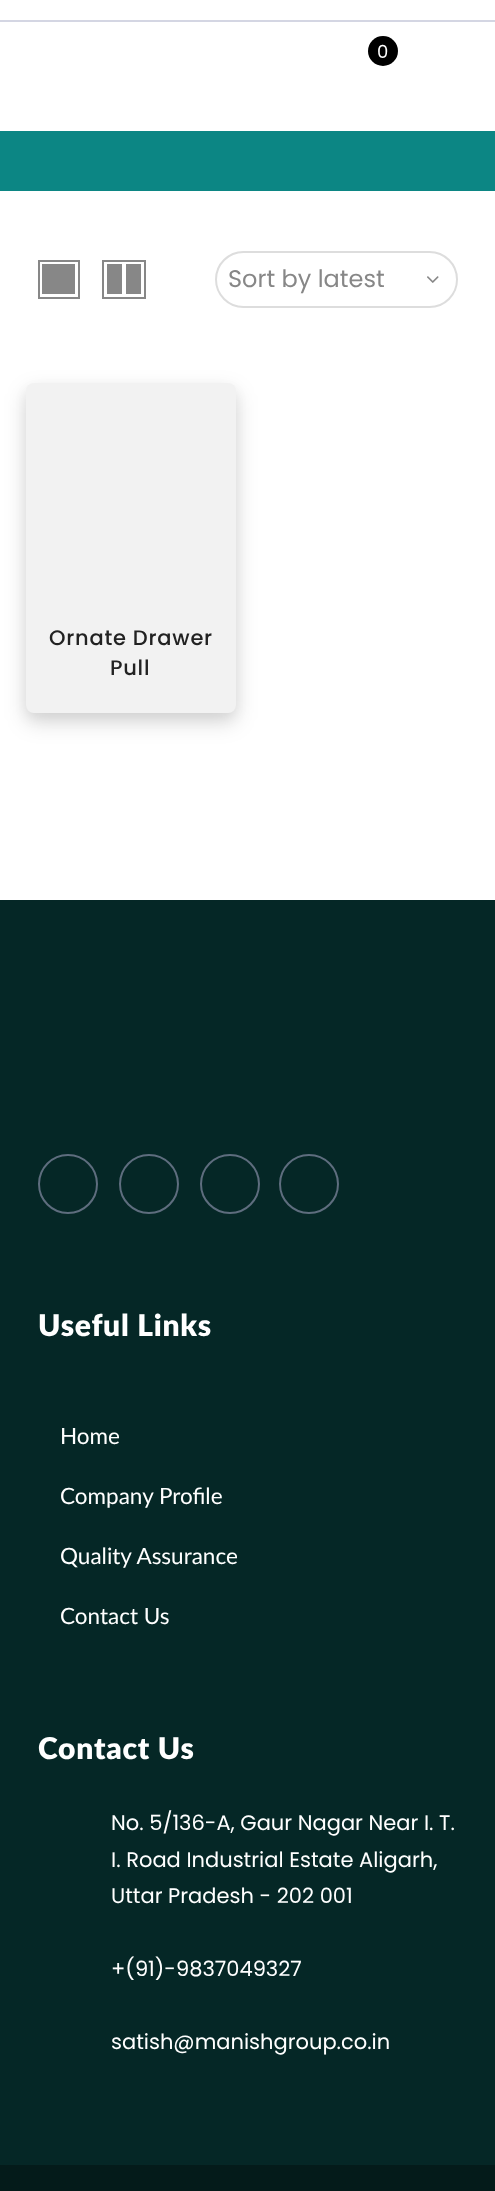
<!DOCTYPE html>
<meta charset="utf-8">
<style>body { margin: 0 } canvas { display: block }</style>
<canvas id="canvas" width="495" height="2191"></canvas>
<script type="module">
  const canvas = document.getElementById("canvas");
  const ctx = canvas.getContext("2d");
  ctx.miterLimit = 4;
  ctx.fontKerning = "normal";
  async function loadImage(src) {
    const img = new Image();
    img.src = src;
    await img.decode();
    return img;
  }

  ctx.fillStyle = "#ffffff";
  ctx.fillRect(0, 0, 495, 2191);
  ctx.fillStyle = "#d4d6e3";
  ctx.fillRect(0, 20, 495, 2);
  ctx.fillStyle = "#000000";
  ctx.beginPath();
  ctx.arc(383, 51, 15, 0, Math.PI * 2);
  ctx.fill();
  ctx.font = "18px Poppins";
  ctx.fillStyle = "#ffffff";
  ctx.fillText("0", 377, 58);
  ctx.fillStyle = "#0c8684";
  ctx.fillRect(0, 131, 495, 60);
  ctx.strokeStyle = "#878787";
  ctx.lineWidth = 2;
  ctx.strokeRect(39, 261, 40, 37);
  ctx.fillStyle = "#878787";
  ctx.fillRect(42, 264, 33, 30);
  ctx.strokeRect(103, 261, 42, 37);
  ctx.fillRect(126, 264, 15, 30);
  ctx.fillRect(107, 264, 15, 30);
  ctx.beginPath();
  ctx.roundRect(216, 252, 241, 55, 27.5);
  ctx.strokeStyle = "#dddddd";
  ctx.stroke();
  ctx.font = "24px Poppins";
  ctx.fillText("Sort by latest", 228, 287);
  ctx.drawImage(await loadImage("img1.png"), 427, 276, 12, 7);
  ctx.fillStyle = "rgba(0, 0, 0, 0.15)";
  ctx.filter = "blur(11px)";
  ctx.beginPath();
  ctx.roundRect(26, 392, 210, 330, 8);
  ctx.fill();
  ctx.filter = "none";
  ctx.fillStyle = "rgba(0, 0, 0, 0.05)";
  ctx.filter = "blur(6px)";
  ctx.beginPath();
  ctx.roundRect(26, 389, 210, 330, 8);
  ctx.fill();
  ctx.filter = "none";
  ctx.fillStyle = "#f2f2f2";
  ctx.beginPath();
  ctx.roundRect(26, 383, 210, 330, 8);
  ctx.fill();
  ctx.letterSpacing = "0.75px";
  ctx.font = "500 21px Poppins";
  ctx.fillStyle = "#222222";
  ctx.fillText("Ornate Drawer", 49, 645);
  ctx.fillText("Pull", 110, 675);
  ctx.fillStyle = "#052726";
  ctx.fillRect(0, 900, 495, 1265);
  ctx.beginPath();
  ctx.arc(68, 1184, 29, 0, Math.PI * 2);
  ctx.strokeStyle = "#5e6d7e";
  ctx.stroke();
  ctx.beginPath();
  ctx.arc(149, 1184, 29, 0, Math.PI * 2);
  ctx.stroke();
  ctx.beginPath();
  ctx.arc(230, 1184, 29, 0, Math.PI * 2);
  ctx.stroke();
  ctx.beginPath();
  ctx.arc(309, 1184, 29, 0, Math.PI * 2);
  ctx.stroke();
  ctx.font = "800 30px Lato";
  ctx.fillStyle = "#ffffff";
  ctx.fillText("Useful Links", 38, 1336);
  ctx.letterSpacing = "0px";
  ctx.font = "22.5px Lato";
  ctx.fillText("Home", 60, 1444);
  ctx.fillText("Company Profile", 60, 1504);
  ctx.fillText("Quality Assurance", 60, 1564);
  ctx.fillText("Contact Us", 60, 1624);
  ctx.letterSpacing = "0.75px";
  ctx.font = "800 30px Lato";
  ctx.fillText("Contact Us", 38, 1759);
  ctx.letterSpacing = "0px";
  ctx.font = "21px Poppins";
  ctx.fillText("No. 5/136-A, Gaur Nagar Near I. T.", 111, 1830);
  ctx.fillText("I. Road Industrial Estate Aligarh,", 111, 1867);
  ctx.fillText("Uttar Pradesh - 202 001", 111, 1903);
  ctx.fillText("+(91)-9837049327", 111, 1976);
  ctx.fillText("satish@manishgroup.co.in", 111, 2049);
  ctx.fillStyle = "#041b1a";
  ctx.fillRect(0, 2165, 495, 26);
</script>
